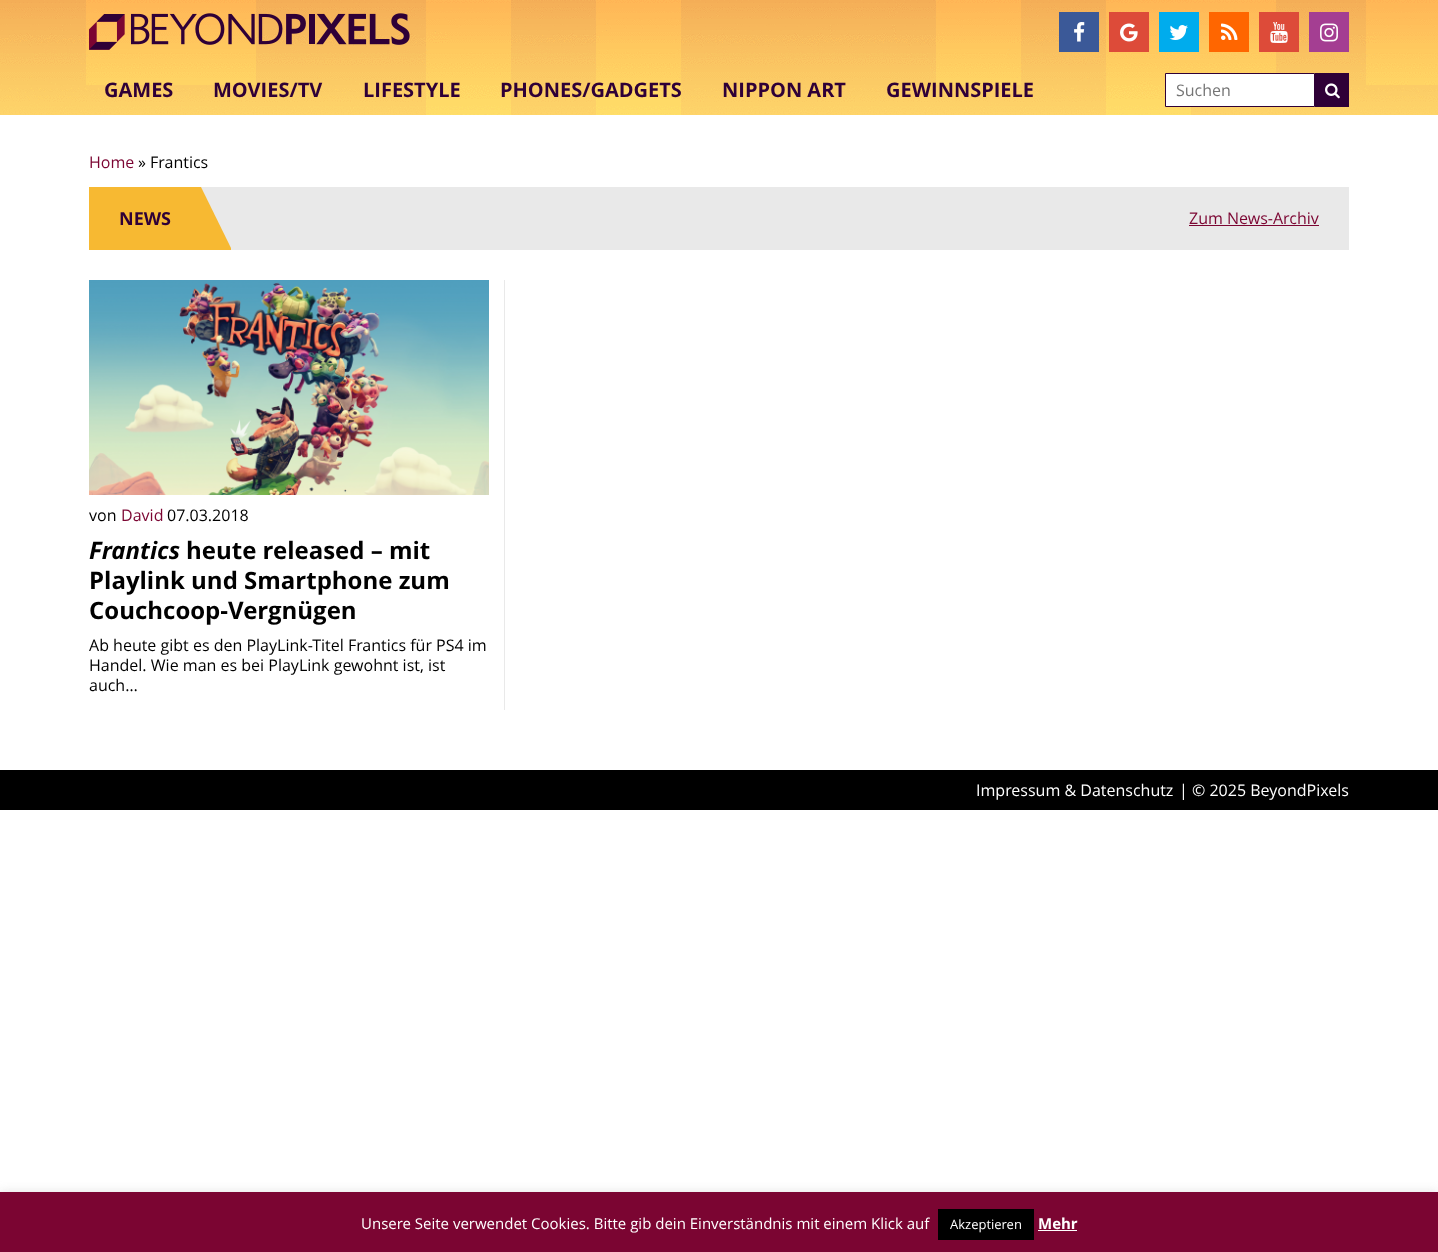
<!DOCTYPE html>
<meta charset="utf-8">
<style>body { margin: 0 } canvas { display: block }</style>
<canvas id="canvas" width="1438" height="1252"></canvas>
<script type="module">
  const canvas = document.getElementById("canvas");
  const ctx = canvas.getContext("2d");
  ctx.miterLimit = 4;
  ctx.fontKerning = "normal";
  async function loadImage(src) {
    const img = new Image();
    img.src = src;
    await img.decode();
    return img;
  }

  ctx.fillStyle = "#ffffff";
  ctx.fillRect(0, 0, 1438, 1252);
  ctx.drawImage(await loadImage("img1.png"), 0, 0, 1438, 115);
  ctx.drawImage(await loadImage("img2.png"), 89, 13, 321, 37);
  ctx.fillStyle = "#3b5998";
  ctx.fillRect(1059, 12, 40, 40);
  ctx.drawImage(await loadImage("img3.png"), 1074, 22, 11, 20);
  ctx.fillStyle = "#dd4b39";
  ctx.fillRect(1109, 12, 40, 40);
  ctx.drawImage(await loadImage("img4.png"), 1120, 23, 18, 19);
  ctx.fillStyle = "#00aced";
  ctx.fillRect(1159, 12, 40, 40);
  ctx.drawImage(await loadImage("img5.png"), 1169, 25, 19, 15);
  ctx.fillStyle = "#ff6600";
  ctx.fillRect(1209, 12, 40, 40);
  ctx.drawImage(await loadImage("img6.png"), 1221, 23, 17, 17);
  ctx.fillStyle = "#dd4b39";
  ctx.fillRect(1259, 12, 40, 40);
  ctx.drawImage(await loadImage("img7.png"), 1270, 22, 18, 21);
  ctx.fillStyle = "#a43e92";
  ctx.fillRect(1309, 12, 40, 40);
  ctx.drawImage(await loadImage("img8.png"), 1320, 23, 18, 19);
  ctx.font = "bold 20px Open Sans";
  ctx.fillStyle = "#2f0037";
  ctx.fillText("GAMES", 104, 97);
  ctx.fillText("MOVIES/TV", 213, 97);
  ctx.fillText("LIFESTYLE", 363, 97);
  ctx.fillText("PHONES/GADGETS", 500, 97);
  ctx.fillText("NIPPON ART", 722, 97);
  ctx.fillText("GEWINNSPIELE", 886, 97);
  ctx.fillStyle = "#ffffff";
  ctx.beginPath();
  ctx.rect(1165.5, 73.5, 149, 33);
  ctx.fill();
  ctx.strokeStyle = "#2f0037";
  ctx.stroke();
  ctx.font = "16px Open Sans";
  ctx.fillStyle = "#757575";
  ctx.fillText("Suchen", 1176, 96);
  ctx.fillStyle = "#2f0037";
  ctx.fillRect(1315, 73, 34, 34);
  ctx.drawImage(await loadImage("img9.png"), 1325, 83, 15, 16);
  ctx.fillStyle = "#7b0532";
  ctx.fillText("Home", 89, 168);
  ctx.fillStyle = "#000000";
  ctx.fillText("» Frantics", 138, 168);
  ctx.fillStyle = "#e9e9e9";
  ctx.fillRect(231, 187, 1118, 63);
  ctx.fillStyle = "#f7b932";
  ctx.fillRect(89, 187, 142, 63);
  ctx.font = "bold 18px Open Sans";
  ctx.fillStyle = "#2f0037";
  ctx.fillText("NEWS", 119, 225);
  ctx.fillStyle = "#e9e9e9";
  ctx.beginPath();
  ctx.moveTo(201, 187);
  ctx.lineTo(231, 187);
  ctx.lineTo(231, 248);
  ctx.closePath();
  ctx.fill();
  ctx.font = "16px Open Sans";
  ctx.fillStyle = "#7b0532";
  ctx.fillText("Zum News-Archiv", 1189, 224);
  ctx.fillRect(1189, 225, 130, 1);
  ctx.drawImage(await loadImage("img10.png"), 89, 280, 400, 215);
  ctx.fillStyle = "#000000";
  ctx.fillText("von", 89, 521);
  ctx.fillStyle = "#7b0532";
  ctx.fillText("David", 121, 521);
  ctx.fillStyle = "#000000";
  ctx.fillText("07.03.2018", 167, 521);
  ctx.font = "italic bold 24px Open Sans";
  ctx.fillText("Frantics", 89, 559);
  ctx.font = "bold 24px Open Sans";
  ctx.fillText("heute released – mit", 186, 559);
  ctx.fillText("Playlink und Smartphone zum", 89, 589);
  ctx.fillText("Couchcoop-Vergnügen", 89, 619);
  ctx.font = "16px Open Sans";
  ctx.fillText("Ab heute gibt es den PlayLink-Titel Frantics für PS4 im", 89, 651);
  ctx.fillText("Handel. Wie man es bei PlayLink gewohnt ist, ist", 89, 671);
  ctx.fillText("auch…", 89, 691);
  ctx.fillStyle = "#e9e9e9";
  ctx.fillRect(504, 280, 1, 430);
  ctx.fillStyle = "#000000";
  ctx.fillRect(0, 770, 1438, 40);
  ctx.fillStyle = "#ffffff";
  ctx.fillText("Impressum & Datenschutz", 976, 796);
  ctx.fillText("| © 2025 BeyondPixels", 1179, 796);
  ctx.fillStyle = "rgba(172, 171, 171, 0.3)";
  ctx.filter = "blur(5px)";
  ctx.beginPath();
  ctx.rect(0, 1191, 1438, 60);
  ctx.fill();
  ctx.filter = "none";
  ctx.fillStyle = "#7b0532";
  ctx.fillRect(0, 1192, 1438, 60);
  ctx.font = "15px Open Sans";
  ctx.fillStyle = "#ffffff";
  ctx.fillText("Unsere Seite verwendet Cookies. Bitte gib dein Einverständnis mit einem Klick auf", 361, 1229);
  ctx.fillStyle = "#000000";
  ctx.fillRect(938, 1209, 96, 31);
  ctx.font = "13px Open Sans";
  ctx.fillStyle = "#ffffff";
  ctx.fillText("Akzeptieren", 950, 1229);
  ctx.font = "bold 15px Open Sans";
  ctx.fillText("Mehr", 1038, 1229);
  ctx.fillRect(1038, 1230, 39, 1);
</script>
